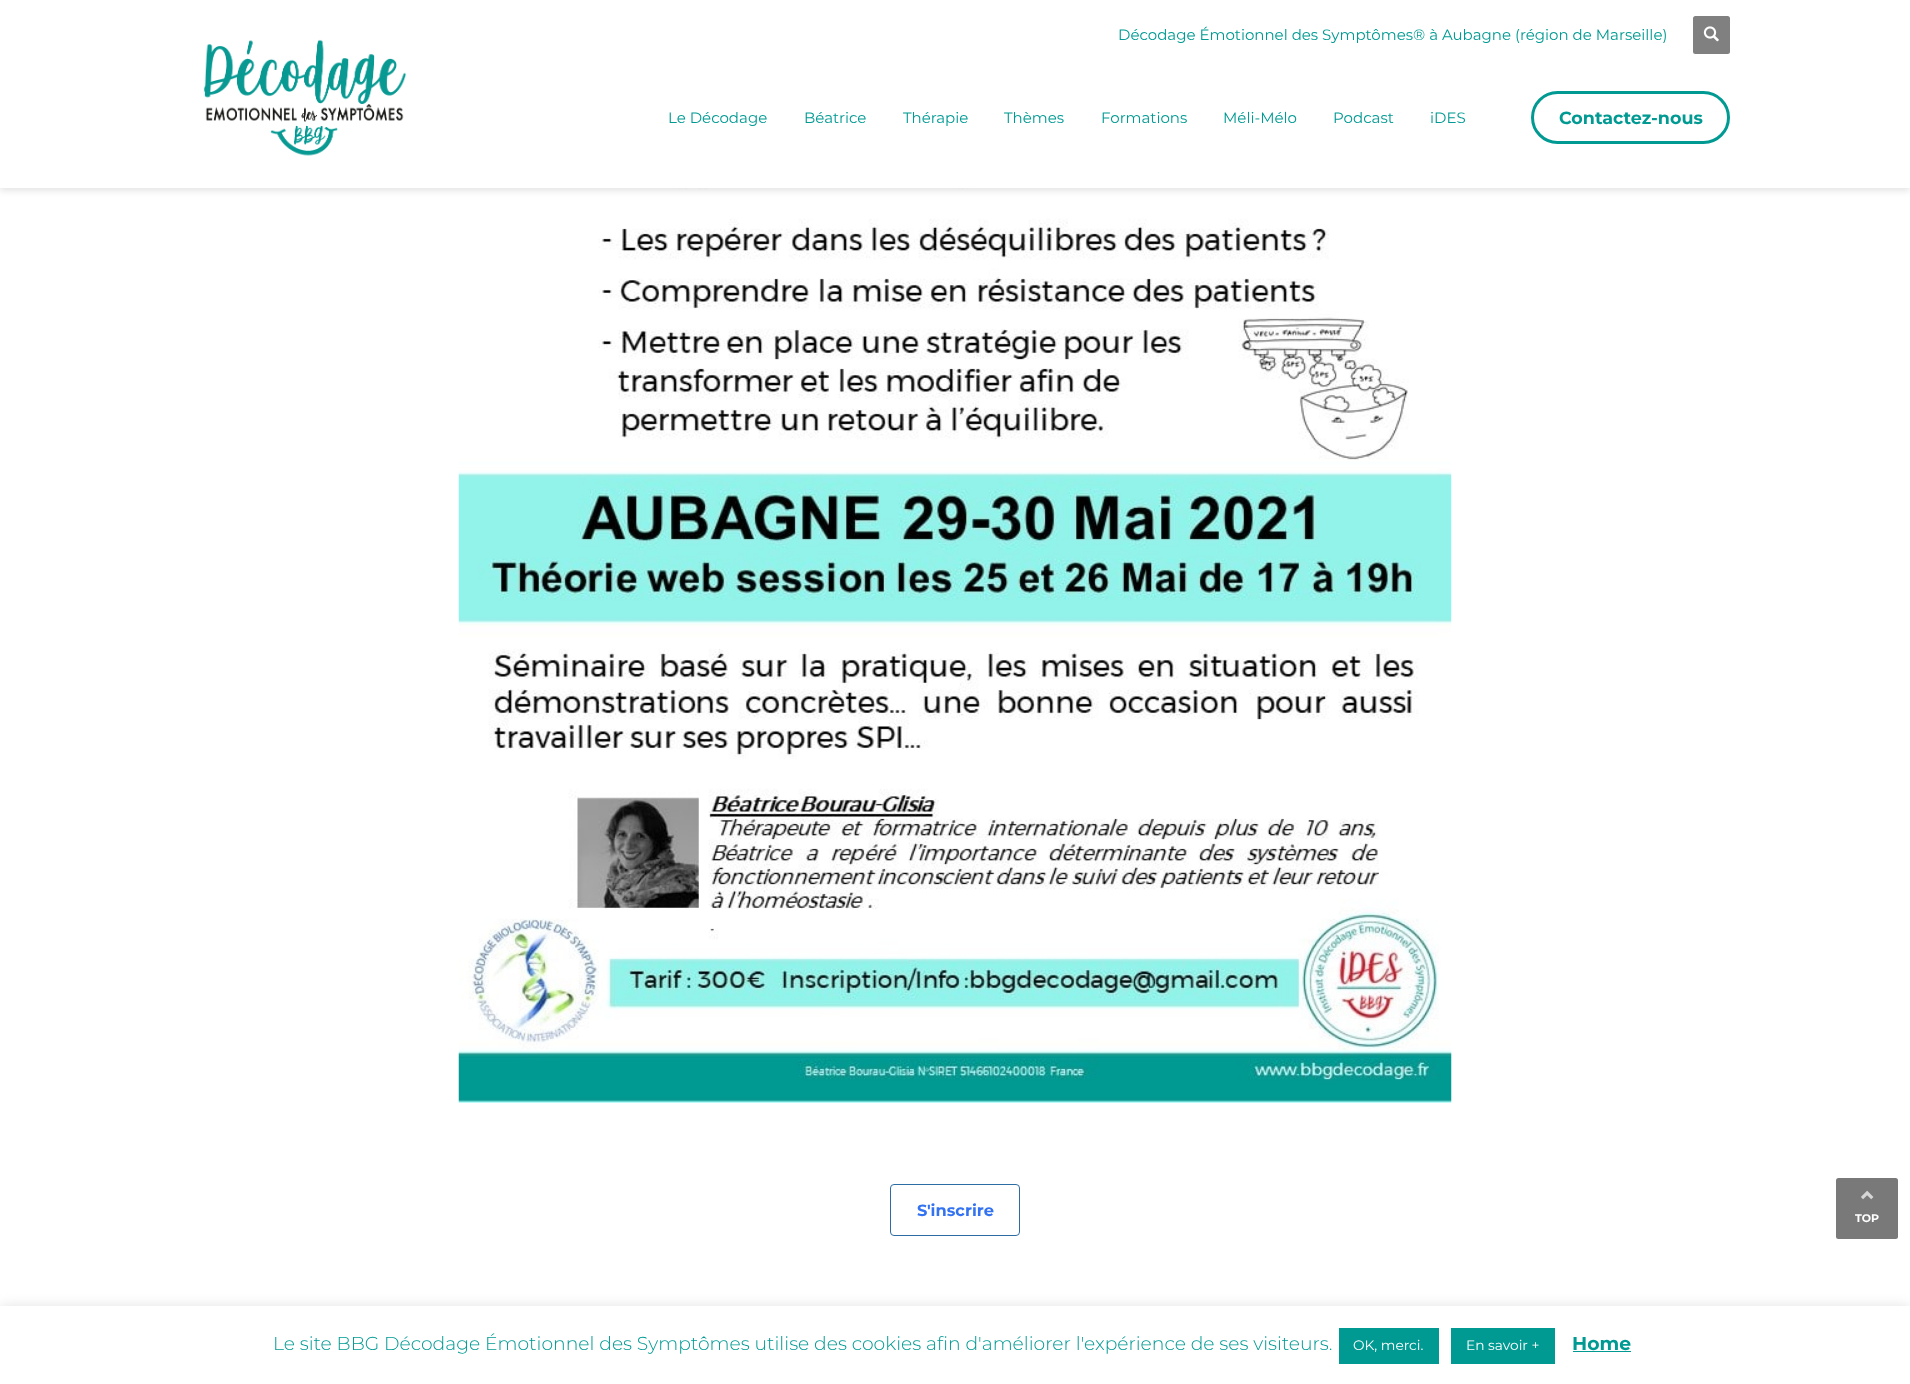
<!DOCTYPE html>
<meta charset="utf-8">
<style>body { margin: 0 } canvas { display: block }</style>
<canvas id="canvas" width="1910" height="1384"></canvas>
<script type="module">
  const canvas = document.getElementById("canvas");
  const ctx = canvas.getContext("2d");
  ctx.miterLimit = 4;
  ctx.fontKerning = "normal";
  async function loadImage(src) {
    const img = new Image();
    img.src = src;
    await img.decode();
    return img;
  }

  ctx.fillStyle = "#ffffff";
  ctx.fillRect(0, 0, 1910, 1384);
  ctx.drawImage(await loadImage("img3.png"), 458, 188, 994, 915);
  ctx.fillStyle = "rgba(0, 0, 0, 0.1)";
  ctx.filter = "blur(3px)";
  ctx.beginPath();
  ctx.rect(0, 4, 1910, 187);
  ctx.fill();
  ctx.filter = "none";
  ctx.fillStyle = "#ffffff";
  ctx.fillRect(0, 0, 1910, 188);
  ctx.drawImage(await loadImage("img1.png"), 203, 39, 204, 117);
  ctx.font = "15px Montserrat";
  ctx.fillStyle = "#009a93";
  ctx.fillText("Décodage Émotionnel des Symptômes® à Aubagne (région de Marseille)", 1118, 40);
  ctx.fillStyle = "#808080";
  ctx.beginPath();
  ctx.roundRect(1693, 16, 37, 38, 2.5);
  ctx.fill();
  ctx.drawImage(await loadImage("img2.png"), 1703, 26, 16, 16);
  ctx.fillStyle = "#009a93";
  ctx.fillText("Le Décodage", 668, 123);
  ctx.fillText("Béatrice", 804, 123);
  ctx.fillText("Thérapie", 903, 123);
  ctx.fillText("Thèmes", 1004, 123);
  ctx.fillText("Formations", 1101, 123);
  ctx.fillText("Méli-Mélo", 1223, 123);
  ctx.fillText("Podcast", 1333, 123);
  ctx.fillText("iDES", 1430, 123);
  ctx.beginPath();
  ctx.roundRect(1532.5, 92.5, 196, 50, 25);
  ctx.strokeStyle = "#009a93";
  ctx.lineWidth = 3;
  ctx.stroke();
  ctx.font = "bold 17.5px Montserrat";
  ctx.fillText("Contactez-nous", 1559, 124);
  ctx.beginPath();
  ctx.roundRect(890.5, 1184.5, 129, 51, 3.5);
  ctx.strokeStyle = "#2e6da4";
  ctx.lineWidth = 1;
  ctx.stroke();
  ctx.font = "bold 16.25px Montserrat";
  ctx.fillStyle = "#3372f0";
  ctx.fillText("S'inscrire", 917, 1216);
  ctx.fillStyle = "#797979";
  ctx.beginPath();
  ctx.roundRect(1836, 1178, 62, 61, 2.5);
  ctx.fill();
  ctx.drawImage(await loadImage("img4.png"), 1861, 1190, 13, 10);
  ctx.font = "bold 11px Montserrat";
  ctx.fillStyle = "#ffffff";
  ctx.fillText("TOP", 1855, 1222);
  ctx.fillStyle = "rgba(172, 171, 171, 0.3)";
  ctx.filter = "blur(6px)";
  ctx.beginPath();
  ctx.rect(0, 1305, 1910, 79);
  ctx.fill();
  ctx.filter = "none";
  ctx.fillStyle = "#ffffff";
  ctx.fillRect(0, 1306, 1910, 78);
  ctx.font = "300 18.75px Montserrat";
  ctx.fillStyle = "#009a93";
  ctx.fillText("Le site BBG Décodage Émotionnel des Symptômes utilise des cookies afin d'améliorer l'expérience de ses visiteurs.", 273, 1350);
  ctx.fillRect(1339, 1328, 100, 36);
  ctx.font = "13.75px Montserrat";
  ctx.fillStyle = "#ffffff";
  ctx.fillText("OK, merci.", 1353, 1350);
  ctx.fillStyle = "#009a93";
  ctx.fillRect(1451, 1328, 104, 36);
  ctx.fillStyle = "#ffffff";
  ctx.fillText("En savoir +", 1466, 1350);
  ctx.font = "bold 18.75px Montserrat";
  ctx.fillStyle = "#009a93";
  ctx.fillText("Home", 1572, 1350);
  ctx.fillRect(1573, 1351, 58, 1);
</script>
